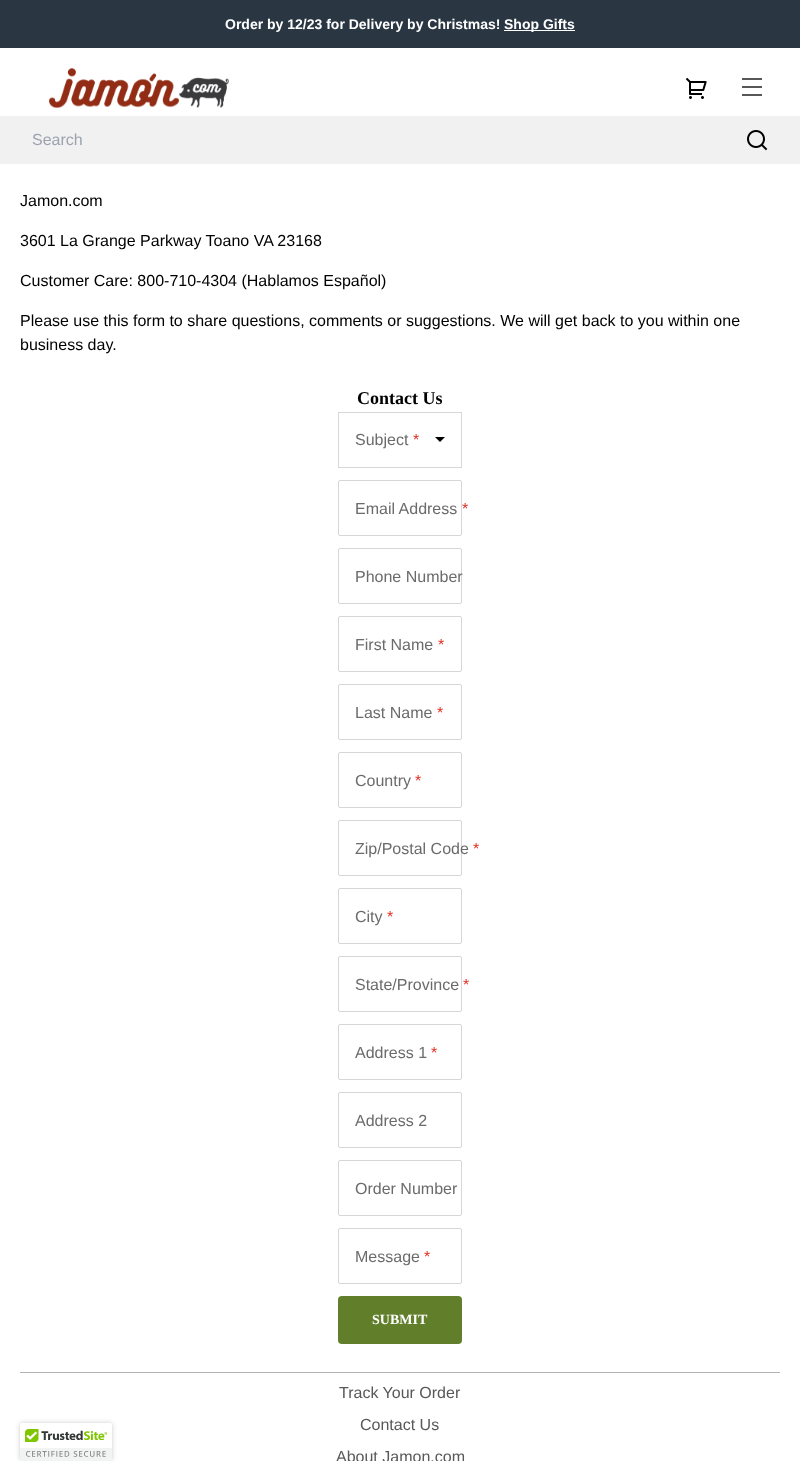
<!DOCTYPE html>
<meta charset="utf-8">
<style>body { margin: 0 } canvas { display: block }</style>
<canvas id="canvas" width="800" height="1461"></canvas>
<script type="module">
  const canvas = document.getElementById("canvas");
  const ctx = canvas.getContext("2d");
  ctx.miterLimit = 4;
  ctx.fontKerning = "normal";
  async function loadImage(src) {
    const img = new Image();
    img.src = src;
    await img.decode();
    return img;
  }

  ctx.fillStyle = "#ffffff";
  ctx.fillRect(0, 0, 800, 1461);
  ctx.fillStyle = "#2a3743";
  ctx.fillRect(0, 0, 800, 48);
  ctx.font = "bold 14px Liberation Sans";
  ctx.fillStyle = "#ffffff";
  ctx.fillText("Order by 12/23 for Delivery by Christmas!", 225, 29);
  ctx.fillRect(504, 30, 71, 1);
  ctx.fillText("Shop Gifts", 504, 29);
  ctx.drawImage(await loadImage("img1.png"), 49, 68, 180, 40);
  ctx.drawImage(await loadImage("img2.png"), 685, 77, 22, 22);
  ctx.fillStyle = "#585858";
  ctx.fillRect(742, 78, 20, 2);
  ctx.fillRect(742, 86, 20, 2);
  ctx.fillRect(742, 94, 20, 2);
  ctx.fillStyle = "#f1f1f1";
  ctx.fillRect(0, 116, 800, 48);
  ctx.font = "16px Liberation Sans";
  ctx.fillStyle = "#9ca3af";
  ctx.fillText("Search", 32, 145);
  ctx.drawImage(await loadImage("img3.png"), 747, 130, 21, 21);
  ctx.fillStyle = "#000000";
  ctx.fillText("Jamon.com", 20, 206);
  ctx.fillText("3601 La Grange Parkway Toano VA 23168", 20, 246);
  ctx.fillText("Customer Care: 800-710-4304 (Hablamos Español)", 20, 286);
  ctx.fillText("Please use this form to share questions, comments or suggestions. We will get back to you within one", 20, 326);
  ctx.fillText("business day.", 20, 350);
  ctx.font = "bold 18px Liberation Serif";
  ctx.fillText("Contact Us", 357, 404);
  ctx.strokeStyle = "#d7d7d7";
  ctx.strokeRect(338.5, 412.5, 123, 55);
  ctx.font = "16px Liberation Sans";
  ctx.fillStyle = "#6b6b6b";
  ctx.fillText("Subject", 355, 445);
  ctx.fillStyle = "#e23122";
  ctx.fillText("*", 413, 445);
  ctx.fillStyle = "#000000";
  ctx.beginPath();
  ctx.moveTo(435, 437);
  ctx.lineTo(440, 442);
  ctx.lineTo(445, 437);
  ctx.closePath();
  ctx.fill();
  ctx.beginPath();
  ctx.roundRect(338.5, 480.5, 123, 55, 1.5);
  ctx.stroke();
  ctx.fillStyle = "#6b6b6b";
  ctx.fillText("Email Address", 355, 514);
  ctx.fillStyle = "#e23122";
  ctx.fillText("*", 462, 514);
  ctx.beginPath();
  ctx.roundRect(338.5, 548.5, 123, 55, 1.5);
  ctx.stroke();
  ctx.fillStyle = "#6b6b6b";
  ctx.fillText("Phone Number", 355, 582);
  ctx.beginPath();
  ctx.roundRect(338.5, 616.5, 123, 55, 1.5);
  ctx.stroke();
  ctx.fillText("First Name", 355, 650);
  ctx.fillStyle = "#e23122";
  ctx.fillText("*", 438, 650);
  ctx.beginPath();
  ctx.roundRect(338.5, 684.5, 123, 55, 1.5);
  ctx.stroke();
  ctx.fillStyle = "#6b6b6b";
  ctx.fillText("Last Name", 355, 718);
  ctx.fillStyle = "#e23122";
  ctx.fillText("*", 437, 718);
  ctx.beginPath();
  ctx.roundRect(338.5, 752.5, 123, 55, 1.5);
  ctx.stroke();
  ctx.fillStyle = "#6b6b6b";
  ctx.fillText("Country", 355, 786);
  ctx.fillStyle = "#e23122";
  ctx.fillText("*", 415, 786);
  ctx.beginPath();
  ctx.roundRect(338.5, 820.5, 123, 55, 1.5);
  ctx.stroke();
  ctx.fillStyle = "#6b6b6b";
  ctx.fillText("Zip/Postal Code", 355, 854);
  ctx.fillStyle = "#e23122";
  ctx.fillText("*", 473, 854);
  ctx.beginPath();
  ctx.roundRect(338.5, 888.5, 123, 55, 1.5);
  ctx.stroke();
  ctx.fillStyle = "#6b6b6b";
  ctx.fillText("City", 355, 922);
  ctx.fillStyle = "#e23122";
  ctx.fillText("*", 387, 922);
  ctx.beginPath();
  ctx.roundRect(338.5, 956.5, 123, 55, 1.5);
  ctx.stroke();
  ctx.fillStyle = "#6b6b6b";
  ctx.fillText("State/Province", 355, 990);
  ctx.fillStyle = "#e23122";
  ctx.fillText("*", 463, 990);
  ctx.beginPath();
  ctx.roundRect(338.5, 1024.5, 123, 55, 1.5);
  ctx.stroke();
  ctx.fillStyle = "#6b6b6b";
  ctx.fillText("Address 1", 355, 1058);
  ctx.fillStyle = "#e23122";
  ctx.fillText("*", 431, 1058);
  ctx.beginPath();
  ctx.roundRect(338.5, 1092.5, 123, 55, 1.5);
  ctx.stroke();
  ctx.fillStyle = "#6b6b6b";
  ctx.fillText("Address 2", 355, 1126);
  ctx.beginPath();
  ctx.roundRect(338.5, 1160.5, 123, 55, 1.5);
  ctx.stroke();
  ctx.fillText("Order Number", 355, 1194);
  ctx.beginPath();
  ctx.roundRect(338.5, 1228.5, 123, 55, 1.5);
  ctx.stroke();
  ctx.fillText("Message", 355, 1262);
  ctx.fillStyle = "#e23122";
  ctx.fillText("*", 424, 1262);
  ctx.fillStyle = "#617e2a";
  ctx.beginPath();
  ctx.roundRect(338, 1296, 124, 48, 4);
  ctx.fill();
  ctx.font = "bold 14px Liberation Serif";
  ctx.fillStyle = "#ffffff";
  ctx.fillText("SUBMIT", 372, 1324);
  ctx.fillStyle = "#b4b4b4";
  ctx.fillRect(20, 1372, 760, 1);
  ctx.font = "16px Liberation Sans";
  ctx.fillStyle = "#585858";
  ctx.fillText("Track Your Order", 339, 1398);
  ctx.fillText("Contact Us", 360, 1430);
  ctx.fillText("About Jamon.com", 336, 1462);
  ctx.fillStyle = "rgba(0, 0, 0, 0.2)";
  ctx.filter = "blur(2.5px)";
  ctx.beginPath();
  ctx.roundRect(20, 1423, 92, 38, 2);
  ctx.fill();
  ctx.filter = "none";
  ctx.fillStyle = "#ffffff";
  ctx.beginPath();
  ctx.roundRect(20, 1423, 92, 38, [2, 2, 0, 0]);
  ctx.fill();
  ctx.drawImage(await loadImage("img4.png"), 20, 1429, 92, 32);
</script>
